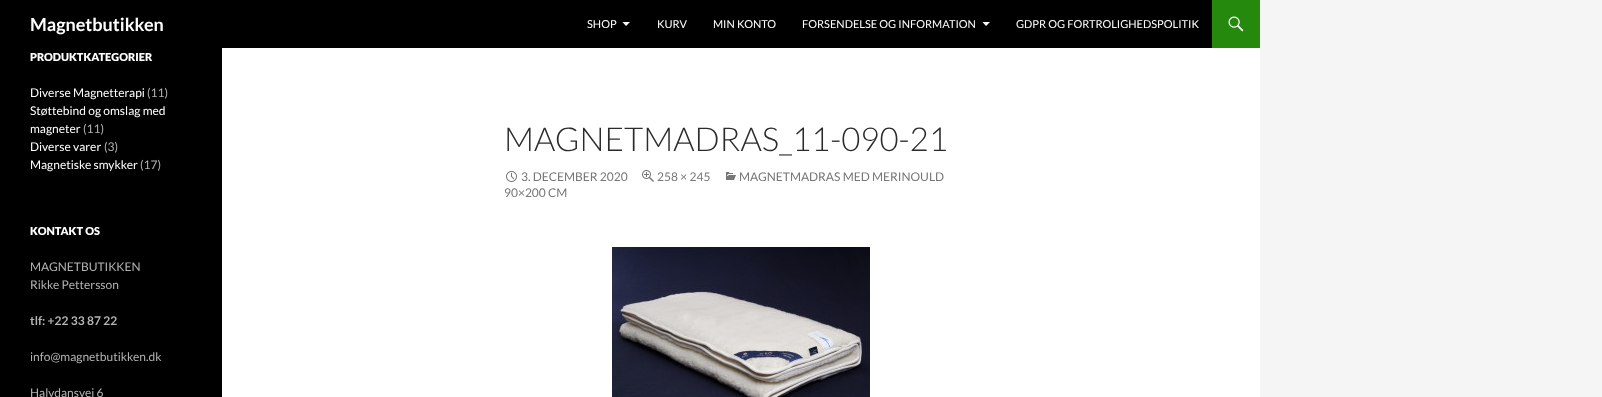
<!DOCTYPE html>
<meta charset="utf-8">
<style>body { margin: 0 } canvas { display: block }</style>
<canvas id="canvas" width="1602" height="397"></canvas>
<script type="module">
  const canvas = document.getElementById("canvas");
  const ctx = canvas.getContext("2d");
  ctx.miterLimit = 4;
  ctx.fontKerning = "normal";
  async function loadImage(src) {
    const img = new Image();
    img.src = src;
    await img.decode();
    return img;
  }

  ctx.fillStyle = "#f5f5f5";
  ctx.fillRect(0, 0, 1602, 397);
  ctx.fillStyle = "#ffffff";
  ctx.fillRect(222, 48, 1038, 349);
  ctx.fillStyle = "#000000";
  ctx.fillRect(0, 0, 1212, 48);
  ctx.font = "bold 18px Lato";
  ctx.fillStyle = "#ffffff";
  ctx.fillText("Magnetbutikken", 30, 31);
  ctx.font = "11px Lato";
  ctx.fillText("SHOP", 587, 28);
  ctx.beginPath();
  ctx.moveTo(622.5, 22);
  ctx.lineTo(626, 26);
  ctx.lineTo(630, 22);
  ctx.closePath();
  ctx.fill();
  ctx.fillText("KURV", 657, 28);
  ctx.fillText("MIN KONTO", 713, 28);
  ctx.fillText("FORSENDELSE OG INFORMATION", 802, 28);
  ctx.beginPath();
  ctx.moveTo(982.5, 22);
  ctx.lineTo(986, 26);
  ctx.lineTo(990, 22);
  ctx.closePath();
  ctx.fill();
  ctx.fillText("GDPR OG FORTROLIGHEDSPOLITIK", 1016, 28);
  ctx.fillStyle = "#24890d";
  ctx.fillRect(1212, 0, 48, 48);
  ctx.drawImage(await loadImage("img1.png"), 1228, 16, 16, 16);
  ctx.fillStyle = "#000000";
  ctx.fillRect(0, 48, 222, 349);
  ctx.font = "900 11px Lato";
  ctx.fillStyle = "#ffffff";
  ctx.fillText("PRODUKTKATEGORIER", 30, 61);
  ctx.font = "12px Lato";
  ctx.fillText("Diverse Magnetterapi", 30, 97);
  ctx.fillStyle = "#b3b3b3";
  ctx.fillText("(11)", 147, 97);
  ctx.fillStyle = "#ffffff";
  ctx.fillText("Støttebind og omslag med", 30, 115);
  ctx.fillText("magneter", 30, 133);
  ctx.fillStyle = "#b3b3b3";
  ctx.fillText("(11)", 83, 133);
  ctx.fillStyle = "#ffffff";
  ctx.fillText("Diverse varer", 30, 151);
  ctx.fillStyle = "#b3b3b3";
  ctx.fillText("(3)", 104, 151);
  ctx.fillStyle = "#ffffff";
  ctx.fillText("Magnetiske smykker", 30, 169);
  ctx.fillStyle = "#b3b3b3";
  ctx.fillText("(17)", 140, 169);
  ctx.font = "900 11px Lato";
  ctx.fillStyle = "#ffffff";
  ctx.fillText("KONTAKT OS", 30, 235);
  ctx.font = "12px Lato";
  ctx.fillStyle = "#b3b3b3";
  ctx.fillText("MAGNETBUTIKKEN", 30, 271);
  ctx.fillText("Rikke Pettersson", 30, 289);
  ctx.font = "bold 12px Lato";
  ctx.fillText("tlf: +22 33 87 22", 30, 325);
  ctx.font = "12px Lato";
  ctx.fillText("info@magnetbutikken.dk", 30, 361);
  ctx.fillText("Halvdansvej 6", 30, 397);
  ctx.font = "300 33px Lato";
  ctx.fillStyle = "#2b2b2b";
  ctx.fillText("MAGNETMADRAS_11-090-21", 504, 151);
  ctx.drawImage(await loadImage("img2.png"), 726, 172, 10, 8);
  ctx.font = "12px Lato";
  ctx.fillStyle = "#767676";
  ctx.fillText("MAGNETMADRAS MED MERINOULD", 739, 181);
  ctx.fillText("90×200 CM", 504, 197);
  ctx.drawImage(await loadImage("img3.png"), 506, 171, 11, 11);
  ctx.fillText("3. DECEMBER 2020", 521, 181);
  ctx.drawImage(await loadImage("img4.png"), 642, 170, 12, 12);
  ctx.fillText("258 × 245", 657, 181);
  ctx.drawImage(await loadImage("img5.png"), 612, 245, 258, 152);
</script>
